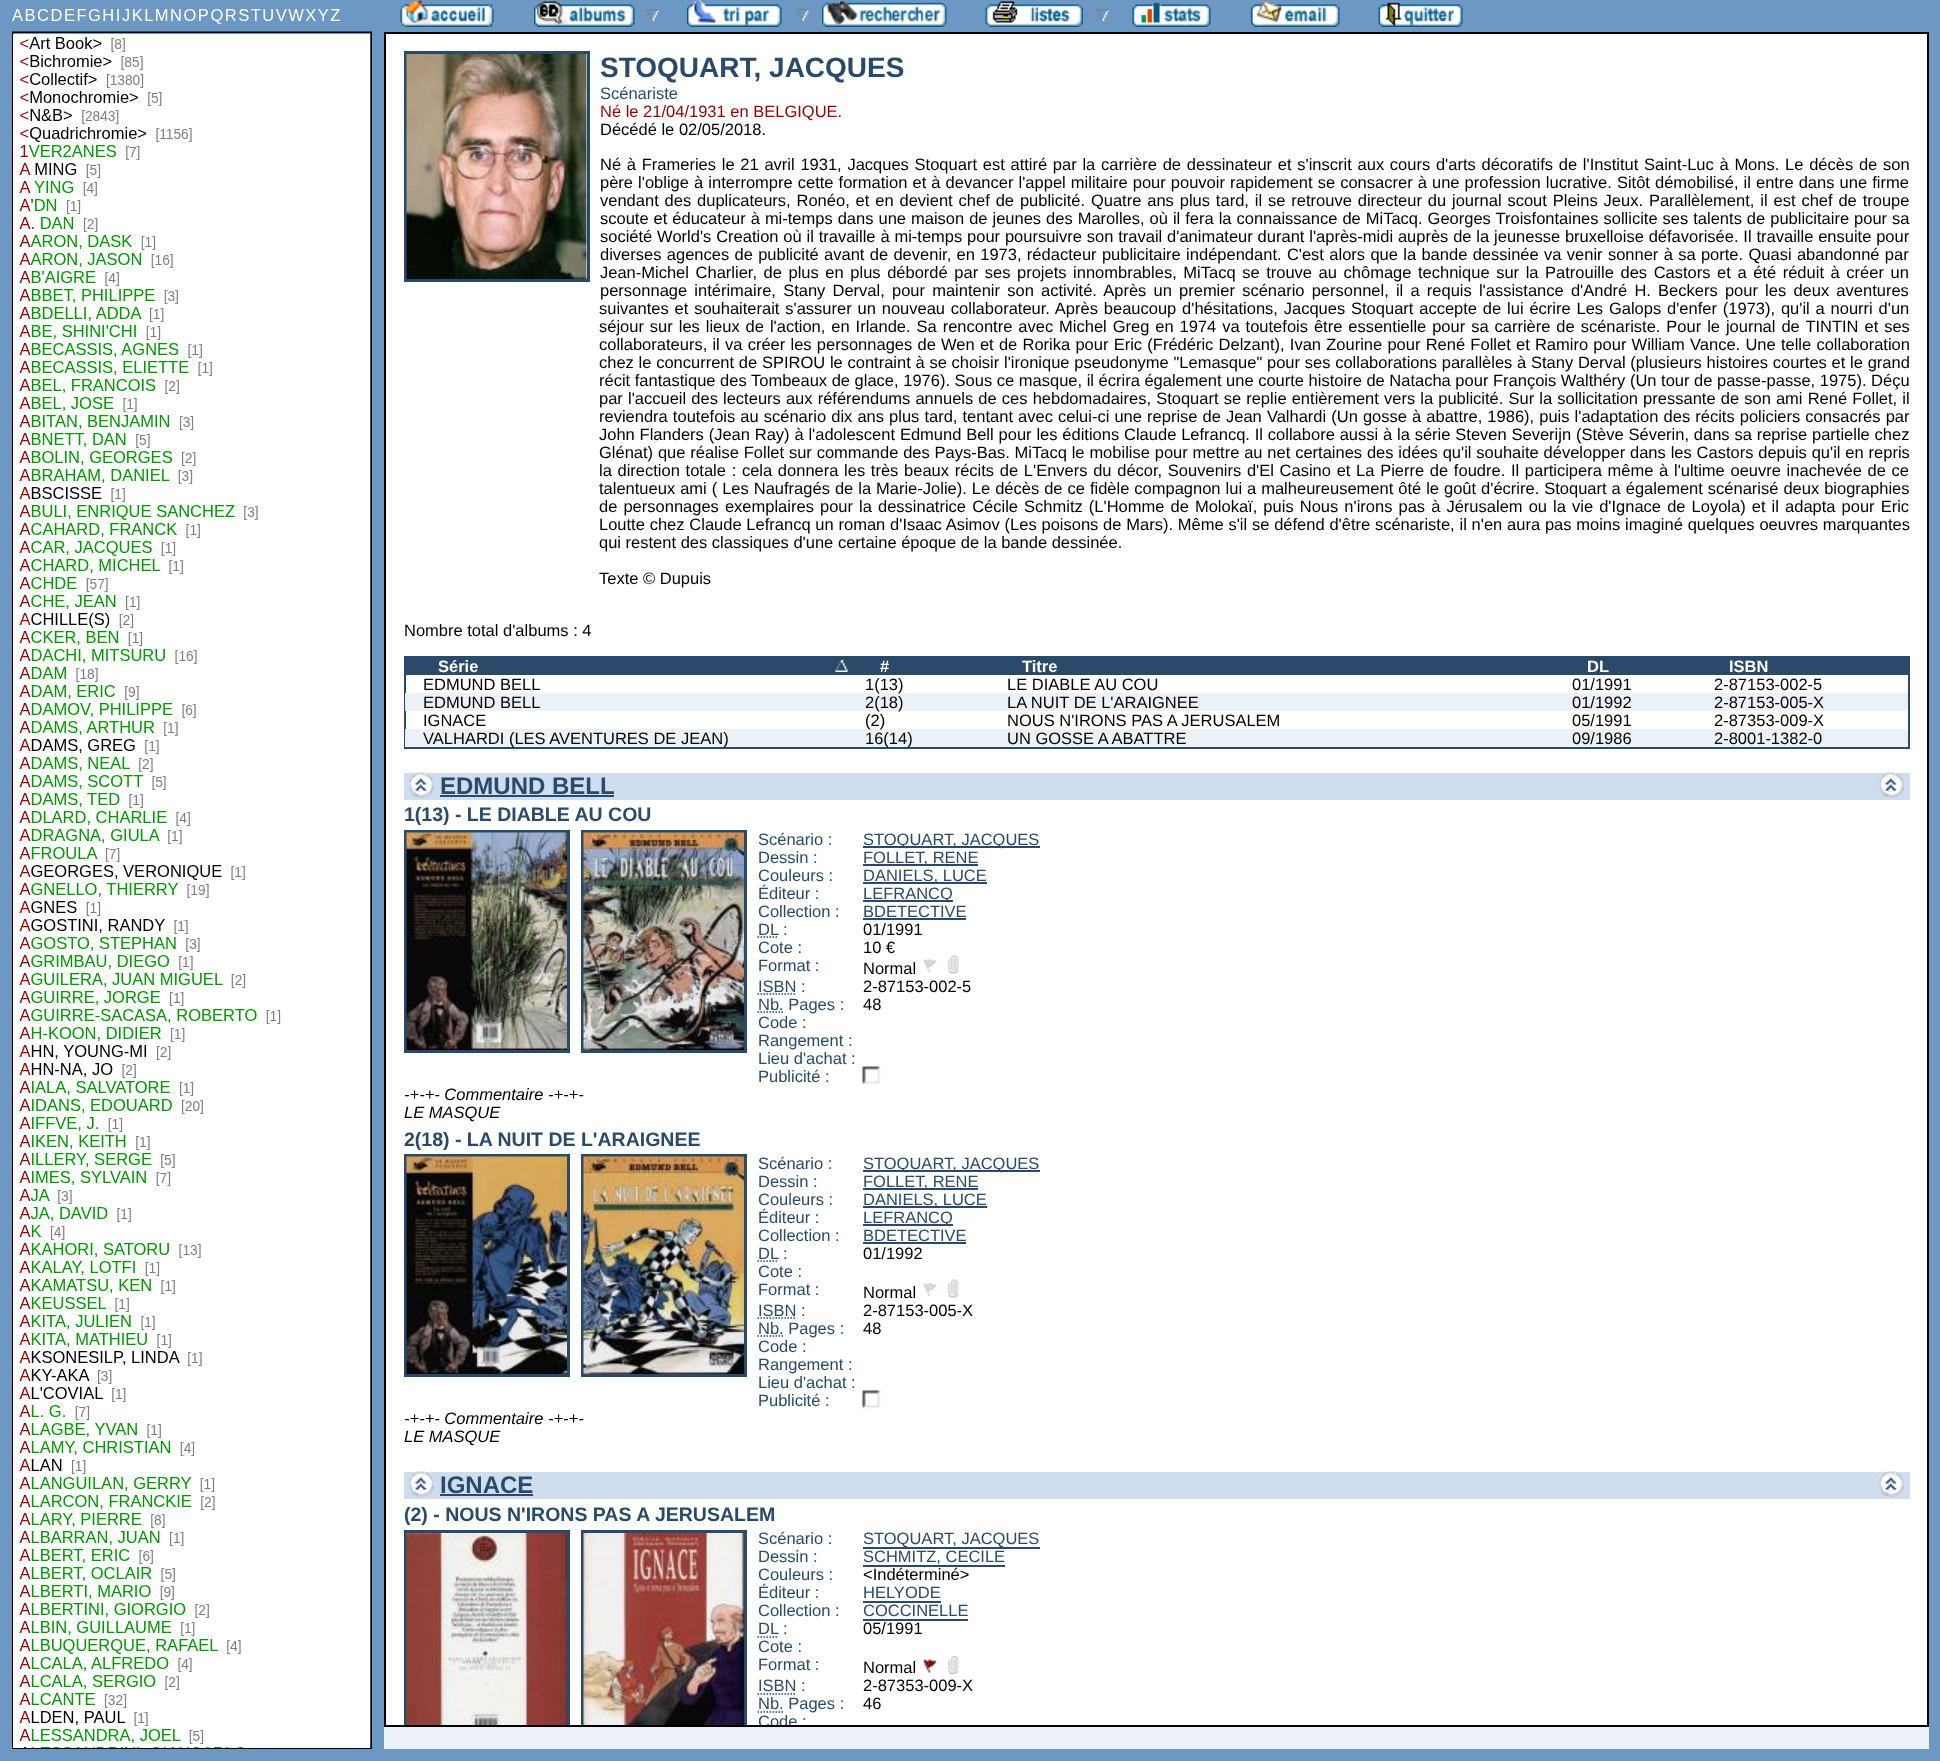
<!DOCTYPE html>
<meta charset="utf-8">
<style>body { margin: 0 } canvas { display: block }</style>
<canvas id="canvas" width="1940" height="1761"></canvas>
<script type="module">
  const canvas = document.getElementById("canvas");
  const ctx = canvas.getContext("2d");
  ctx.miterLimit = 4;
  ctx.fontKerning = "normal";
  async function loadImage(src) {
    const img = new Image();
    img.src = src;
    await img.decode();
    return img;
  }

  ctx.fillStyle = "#6d98c3";
  ctx.fillRect(0, 0, 1940, 1761);
  ctx.drawImage(await loadImage("img1.png"), 12, 9, 360, 1740);
  ctx.drawImage(await loadImage("img2.png"), 400, 0, 94, 27);
  ctx.drawImage(await loadImage("img3.png"), 646, 9, 13, 12);
  ctx.drawImage(await loadImage("img4.png"), 534, 1, 101, 26);
  ctx.drawImage(await loadImage("img5.png"), 796, 9, 13, 12);
  ctx.drawImage(await loadImage("img6.png"), 687, 0, 95, 27);
  ctx.drawImage(await loadImage("img7.png"), 822, 1, 125, 26);
  ctx.drawImage(await loadImage("img5.png"), 1096, 9, 13, 12);
  ctx.drawImage(await loadImage("img8.png"), 985, 1, 98, 26);
  ctx.drawImage(await loadImage("img9.png"), 1132, 2, 79, 25);
  ctx.drawImage(await loadImage("img10.png"), 1251, 1, 89, 26);
  ctx.drawImage(await loadImage("img11.png"), 1378, 2, 85, 25);
  ctx.fillStyle = "#ffffff";
  ctx.beginPath();
  ctx.rect(385, 33, 1543, 1693);
  ctx.fill();
  ctx.strokeStyle = "#000000";
  ctx.lineWidth = 2;
  ctx.stroke();
  ctx.strokeStyle = "#294a6b";
  ctx.lineWidth = 3;
  ctx.strokeRect(405.5, 52.5, 183, 228);
  ctx.drawImage(await loadImage("img12.png"), 406, 54, 181, 225);
  ctx.font = "bold 28px Liberation Sans";
  ctx.fillStyle = "#294a6b";
  ctx.fillText("STOQUART, JACQUES", 600, 77);
  ctx.font = "16.5px Liberation Sans";
  ctx.fillText("Scénariste", 600, 99);
  ctx.fillStyle = "#990000";
  ctx.fillText("Né le 21/04/1931 en BELGIQUE.", 600, 117);
  ctx.fillStyle = "#000000";
  ctx.fillText("Décédé le 02/05/2018.", 600, 135);
  ctx.wordSpacing = "1.15px";
  ctx.fillText("Né à Frameries le 21 avril 1931, Jacques Stoquart est attiré par la carrière de dessinateur et s'inscrit aux cours d'arts décoratifs de l'Institut Saint-Luc à Mons. Le décès de son", 600, 170);
  ctx.wordSpacing = "0.5px";
  ctx.fillText("père l'oblige à interrompre cette formation et à devancer l'appel militaire pour pouvoir rapidement se consacrer à une profession lucrative. Sitôt démobilisé, il entre dans une firme", 600, 188);
  ctx.wordSpacing = "1.3px";
  ctx.fillText("vendant des duplicateurs, Ronéo, et en devient chef de publicité. Quatre ans plus tard, il se retrouve directeur du journal scout Pleins Jeux. Parallèlement, il est chef de troupe", 600, 206);
  ctx.wordSpacing = "0.4px";
  ctx.fillText("scoute et éducateur à mi-temps dans une maison de jeunes des Marolles, où il fera la connaissance de MiTacq. Georges Troisfontaines sollicite ses talents de publicitaire pour sa", 600, 224);
  ctx.wordSpacing = "0.25px";
  ctx.fillText("société World's Creation où il travaille à mi-temps pour poursuivre son travail d'animateur durant l'après-midi auprès de la jeunesse bruxelloise défavorisée. Il travaille ensuite pour", 600, 242);
  ctx.wordSpacing = "0.75px";
  ctx.fillText("diverses agences de publicité avant de devenir, en 1973, rédacteur publicitaire indépendant. C'est alors que la bande dessinée va venir sonner à sa porte. Quasi abandonné par", 600, 260);
  ctx.wordSpacing = "2px";
  ctx.fillText("Jean-Michel Charlier, de plus en plus débordé par ses projets innombrables, MiTacq se trouve au chômage technique sur la Patrouille des Castors et a été réduit à créer un", 600, 278);
  ctx.wordSpacing = "2.6px";
  ctx.fillText("personnage intérimaire, Stany Derval, pour maintenir son activité. Après un premier scénario personnel, il a requis l'assistance d'André H. Beckers pour les deux aventures", 600, 296);
  ctx.wordSpacing = "1.25px";
  ctx.fillText("suivantes et souhaiterait s'assurer un nouveau collaborateur. Après beaucoup d'hésitations, Jacques Stoquart accepte de lui écrire Les Galops d'enfer (1973), qu'il a nourri d'un", 599, 314);
  ctx.wordSpacing = "1.35px";
  ctx.fillText("séjour sur les lieux de l'action, en Irlande. Sa rencontre avec Michel Greg en 1974 va toutefois être essentielle pour sa carrière de scénariste. Pour le journal de TINTIN et ses", 599, 332);
  ctx.wordSpacing = "0.65px";
  ctx.fillText("collaborateurs, il va créer les personnages de Wen et de Rorika pour Eric (Frédéric Delzant), Ivan Zourine pour René Follet et Ramiro pour William Vance. Une telle collaboration", 599, 350);
  ctx.wordSpacing = "0.15px";
  ctx.fillText("chez le concurrent de SPIROU le contraint à se choisir l'ironique pseudonyme \"Lemasque\" pour ses collaborations parallèles à Stany Derval (plusieurs histoires courtes et le grand", 599, 368);
  ctx.wordSpacing = "0px";
  ctx.fillText("récit fantastique des Tombeaux de glace, 1976). Sous ce masque, il écrira également une courte histoire de Natacha pour François Walthéry (Un tour de passe-passe, 1975). Déçu", 599, 386);
  ctx.wordSpacing = "0.55px";
  ctx.fillText("par l'accueil des lecteurs aux référendums annuels de ces hebdomadaires, Stoquart se replie entièrement vers la publicité. Sur la sollicitation pressante de son ami René Follet, il", 599, 404);
  ctx.wordSpacing = "0.5px";
  ctx.fillText("reviendra toutefois au scénario dix ans plus tard, tentant avec celui-ci une reprise de Jean Valhardi (Un gosse à abattre, 1986), puis l'adaptation des récits policiers consacrés par", 599, 422);
  ctx.wordSpacing = "0.25px";
  ctx.fillText("John Flanders (Jean Ray) à l'adolescent Edmund Bell pour les éditions Claude Lefrancq. Il collabore aussi à la série Steven Severijn (Stève Séverin, dans sa reprise partielle chez", 599, 440);
  ctx.fillText("Glénat) que réalise Follet sur commande des Pays-Bas. MiTacq le mobilise pour mettre au net certaines des idées qu'il souhaite développer dans les Castors depuis qu'il en repris", 599, 458);
  ctx.wordSpacing = "1.1px";
  ctx.fillText("la direction totale : cela donnera les très beaux récits de L'Envers du décor, Souvenirs d'El Casino et La Pierre de foudre. Il participera même à l'ultime oeuvre inachevée de ce", 599, 476);
  ctx.wordSpacing = "0.4px";
  ctx.fillText("talentueux ami ( Les Naufragés de la Marie-Jolie). Le décès de ce fidèle compagnon lui a malheureusement ôté le goût d'écrire. Stoquart a également scénarisé deux biographies", 599, 494);
  ctx.wordSpacing = "1.5px";
  ctx.fillText("de personnages exemplaires pour la dessinatrice Cécile Schmitz (L'Homme de Molokaï, puis Nous n'irons pas à Jérusalem ou la vie d'Ignace de Loyola) et il adapta pour Eric", 599, 512);
  ctx.wordSpacing = "0.2px";
  ctx.fillText("Loutte chez Claude Lefrancq un roman d'Isaac Asimov (Les poisons de Mars). Même s'il se défend d'être scénariste, il n'en aura pas moins imaginé quelques oeuvres marquantes", 599, 530);
  ctx.wordSpacing = "0px";
  ctx.fillText("qui restent des classiques d'une certaine époque de la bande dessinée.", 599, 548);
  ctx.fillText("Texte © Dupuis", 599, 584);
  ctx.fillText("Nombre total d'albums : 4", 404, 636);
  ctx.lineWidth = 2;
  ctx.strokeRect(405, 657, 1504, 91);
  ctx.fillStyle = "#294a6b";
  ctx.fillRect(406, 658, 1502, 17);
  ctx.drawImage(await loadImage("img13.png"), 835, 660, 13, 12);
  ctx.font = "bold 16.5px Liberation Sans";
  ctx.fillStyle = "#ffffff";
  ctx.fillText("Série", 438, 672);
  ctx.fillText("#", 880, 672);
  ctx.fillText("Titre", 1022, 672);
  ctx.fillText("DL", 1587, 672);
  ctx.fillText("ISBN", 1729, 672);
  ctx.font = "16.5px Liberation Sans";
  ctx.fillStyle = "#000000";
  ctx.fillText("EDMUND BELL", 423, 690);
  ctx.fillStyle = "#ebf1f7";
  ctx.fillRect(405, 693, 1503, 18);
  ctx.fillStyle = "#000000";
  ctx.fillText("1(13)", 865, 690);
  ctx.fillText("LE DIABLE AU COU", 1007, 690);
  ctx.fillText("01/1991", 1572, 690);
  ctx.fillText("2-87153-002-5", 1714, 690);
  ctx.fillText("EDMUND BELL", 423, 708);
  ctx.fillText("2(18)", 865, 708);
  ctx.fillText("LA NUIT DE L'ARAIGNEE", 1007, 708);
  ctx.fillText("01/1992", 1572, 708);
  ctx.fillText("2-87153-005-X", 1714, 708);
  ctx.fillText("IGNACE", 423, 726);
  ctx.fillStyle = "#ebf1f7";
  ctx.fillRect(405, 729, 1503, 18);
  ctx.fillStyle = "#000000";
  ctx.fillText("(2)", 865, 726);
  ctx.fillText("NOUS N'IRONS PAS A JERUSALEM", 1007, 726);
  ctx.fillText("05/1991", 1572, 726);
  ctx.fillText("2-87353-009-X", 1714, 726);
  ctx.fillText("VALHARDI (LES AVENTURES DE JEAN)", 423, 744);
  ctx.fillText("16(14)", 865, 744);
  ctx.fillText("UN GOSSE A ABATTRE", 1007, 744);
  ctx.fillText("09/1986", 1572, 744);
  ctx.fillText("2-8001-1382-0", 1714, 744);
  ctx.fillStyle = "#cedeef";
  ctx.fillRect(404, 773, 1506, 27);
  ctx.drawImage(await loadImage("img14.png"), 409, 772, 25, 26);
  ctx.drawImage(await loadImage("img14.png"), 1879, 772, 25, 26);
  ctx.font = "bold 24px Liberation Sans";
  ctx.fillStyle = "#294a6b";
  ctx.fillText("EDMUND BELL", 440, 794);
  ctx.fillRect(440, 795, 174, 2);
  ctx.font = "bold 19.5px Liberation Sans";
  ctx.fillText("1(13) - LE DIABLE AU COU", 404, 821);
  ctx.lineWidth = 3;
  ctx.strokeRect(405.5, 831.5, 163, 220);
  ctx.drawImage(await loadImage("img15.png"), 406, 832, 161, 218);
  ctx.strokeRect(582.5, 831.5, 163, 220);
  ctx.drawImage(await loadImage("img16.png"), 583, 832, 161, 218);
  ctx.font = "16.5px Liberation Sans";
  ctx.fillText("Scénario :", 758, 845);
  ctx.fillRect(863, 846, 177, 2);
  ctx.fillText("STOQUART, JACQUES", 863, 845);
  ctx.fillText("Dessin :", 758, 863);
  ctx.fillRect(863, 864, 115, 2);
  ctx.fillText("FOLLET, RENE", 863, 863);
  ctx.fillText("Couleurs :", 758, 881);
  ctx.fillRect(863, 882, 124, 2);
  ctx.fillText("DANIELS, LUCE", 863, 881);
  ctx.fillText("Éditeur :", 758, 899);
  ctx.fillRect(863, 900, 90, 2);
  ctx.fillText("LEFRANCQ", 863, 899);
  ctx.fillText("Collection :", 758, 917);
  ctx.fillText("BDETECTIVE", 863, 917);
  ctx.fillRect(863, 918, 103, 2);
  ctx.fillText("DL :", 758, 935);
  ctx.beginPath();
  ctx.moveTo(757.5, 937);
  ctx.lineTo(778.5, 937);
  ctx.lineWidth = 1.5;
  ctx.setLineDash([1.5, 1.5]);
  ctx.stroke();
  ctx.fillStyle = "#000000";
  ctx.fillText("01/1991", 863, 935);
  ctx.fillStyle = "#294a6b";
  ctx.fillText("Cote :", 758, 953);
  ctx.fillStyle = "#000000";
  ctx.fillText("10 €", 863, 953);
  ctx.fillStyle = "#294a6b";
  ctx.fillText("Format :", 758, 971);
  ctx.fillStyle = "#000000";
  ctx.fillText("Normal", 863, 974);
  ctx.drawImage(await loadImage("img17.png"), 923, 958, 14, 15);
  ctx.drawImage(await loadImage("img18.png"), 947, 955, 12, 19);
  ctx.fillStyle = "#294a6b";
  ctx.fillText("ISBN :", 758, 992);
  ctx.beginPath();
  ctx.moveTo(757.5, 994);
  ctx.lineTo(796, 994);
  ctx.stroke();
  ctx.fillStyle = "#000000";
  ctx.fillText("2-87153-002-5", 863, 992);
  ctx.beginPath();
  ctx.moveTo(757.5, 1012);
  ctx.lineTo(783, 1012);
  ctx.stroke();
  ctx.fillStyle = "#294a6b";
  ctx.fillText("Nb. Pages :", 758, 1010);
  ctx.fillStyle = "#000000";
  ctx.fillText("48", 863, 1010);
  ctx.fillStyle = "#294a6b";
  ctx.fillText("Code :", 758, 1028);
  ctx.fillText("Rangement :", 758, 1046);
  ctx.fillText("Lieu d'achat :", 758, 1064);
  ctx.fillText("Publicité :", 758, 1082);
  ctx.drawImage(await loadImage("img19.png"), 862, 1066, 19, 19);
  ctx.font = "italic 16.5px Liberation Sans";
  ctx.fillStyle = "#000000";
  ctx.fillText("-+-+- Commentaire -+-+-", 404, 1100);
  ctx.fillText("LE MASQUE", 404, 1118);
  ctx.font = "bold 19.5px Liberation Sans";
  ctx.fillStyle = "#294a6b";
  ctx.fillText("2(18) - LA NUIT DE L'ARAIGNEE", 404, 1146);
  ctx.lineWidth = 3;
  ctx.setLineDash([]);
  ctx.strokeRect(405.5, 1155.5, 163, 220);
  ctx.drawImage(await loadImage("img20.png"), 406, 1156, 161, 218);
  ctx.strokeRect(582.5, 1155.5, 163, 220);
  ctx.drawImage(await loadImage("img21.png"), 583, 1156, 161, 218);
  ctx.font = "16.5px Liberation Sans";
  ctx.fillText("Scénario :", 758, 1169);
  ctx.fillRect(863, 1170, 177, 2);
  ctx.fillText("STOQUART, JACQUES", 863, 1169);
  ctx.fillText("Dessin :", 758, 1187);
  ctx.fillRect(863, 1188, 115, 2);
  ctx.fillText("FOLLET, RENE", 863, 1187);
  ctx.fillText("Couleurs :", 758, 1205);
  ctx.fillRect(863, 1206, 124, 2);
  ctx.fillText("DANIELS, LUCE", 863, 1205);
  ctx.fillText("Éditeur :", 758, 1223);
  ctx.fillRect(863, 1224, 90, 2);
  ctx.fillText("LEFRANCQ", 863, 1223);
  ctx.fillText("Collection :", 758, 1241);
  ctx.fillText("BDETECTIVE", 863, 1241);
  ctx.fillRect(863, 1242, 103, 2);
  ctx.fillText("DL :", 758, 1259);
  ctx.beginPath();
  ctx.moveTo(757.5, 1261);
  ctx.lineTo(778.5, 1261);
  ctx.lineWidth = 1.5;
  ctx.setLineDash([1.5, 1.5]);
  ctx.stroke();
  ctx.fillStyle = "#000000";
  ctx.fillText("01/1992", 863, 1259);
  ctx.fillStyle = "#294a6b";
  ctx.fillText("Cote :", 758, 1277);
  ctx.fillText("Format :", 758, 1295);
  ctx.fillStyle = "#000000";
  ctx.fillText("Normal", 863, 1298);
  ctx.drawImage(await loadImage("img17.png"), 923, 1282, 14, 15);
  ctx.drawImage(await loadImage("img18.png"), 947, 1279, 12, 19);
  ctx.fillStyle = "#294a6b";
  ctx.fillText("ISBN :", 758, 1316);
  ctx.beginPath();
  ctx.moveTo(757.5, 1318);
  ctx.lineTo(796, 1318);
  ctx.stroke();
  ctx.fillStyle = "#000000";
  ctx.fillText("2-87153-005-X", 863, 1316);
  ctx.beginPath();
  ctx.moveTo(757.5, 1336);
  ctx.lineTo(783, 1336);
  ctx.stroke();
  ctx.fillStyle = "#294a6b";
  ctx.fillText("Nb. Pages :", 758, 1334);
  ctx.fillStyle = "#000000";
  ctx.fillText("48", 863, 1334);
  ctx.fillStyle = "#294a6b";
  ctx.fillText("Code :", 758, 1352);
  ctx.fillText("Rangement :", 758, 1370);
  ctx.fillText("Lieu d'achat :", 758, 1388);
  ctx.fillText("Publicité :", 758, 1406);
  ctx.drawImage(await loadImage("img19.png"), 862, 1390, 19, 19);
  ctx.font = "italic 16.5px Liberation Sans";
  ctx.fillStyle = "#000000";
  ctx.fillText("-+-+- Commentaire -+-+-", 404, 1424);
  ctx.fillText("LE MASQUE", 404, 1442);
  ctx.fillStyle = "#cedeef";
  ctx.fillRect(404, 1472, 1506, 27);
  ctx.drawImage(await loadImage("img14.png"), 409, 1471, 25, 26);
  ctx.drawImage(await loadImage("img14.png"), 1879, 1471, 25, 26);
  ctx.font = "bold 24px Liberation Sans";
  ctx.fillStyle = "#294a6b";
  ctx.fillText("IGNACE", 440, 1493);
  ctx.fillRect(440, 1494, 93, 2);
  ctx.font = "bold 19.5px Liberation Sans";
  ctx.fillText("(2) - NOUS N'IRONS PAS A JERUSALEM", 404, 1521);
  ctx.save();
  ctx.beginPath();
  ctx.rect(386, 33, 1542, 1692);
  ctx.clip();
  ctx.lineWidth = 3;
  ctx.setLineDash([]);
  ctx.strokeRect(405.5, 1531.5, 163, 221);
  ctx.restore();
  ctx.drawImage(await loadImage("img22.png"), 406, 1533, 161, 192);
  ctx.save();
  ctx.beginPath();
  ctx.rect(386, 33, 1542, 1692);
  ctx.clip();
  ctx.lineWidth = 3;
  ctx.setLineDash([]);
  ctx.strokeRect(582.5, 1531.5, 163, 221);
  ctx.restore();
  ctx.drawImage(await loadImage("img23.png"), 583, 1533, 161, 192);
  ctx.font = "16.5px Liberation Sans";
  ctx.fillText("Scénario :", 758, 1544);
  ctx.fillRect(863, 1547, 177, 2);
  ctx.fillText("STOQUART, JACQUES", 863, 1544);
  ctx.fillText("Dessin :", 758, 1562);
  ctx.fillText("SCHMITZ, CECILE", 863, 1562);
  ctx.fillRect(863, 1565, 142, 2);
  ctx.fillText("Couleurs :", 758, 1580);
  ctx.fillStyle = "#000000";
  ctx.fillText("<Indéterminé>", 863, 1580);
  ctx.fillStyle = "#294a6b";
  ctx.fillText("Éditeur :", 758, 1598);
  ctx.fillText("HELYODE", 863, 1598);
  ctx.fillRect(863, 1601, 78, 2);
  ctx.fillText("Collection :", 758, 1616);
  ctx.fillText("COCCINELLE", 863, 1616);
  ctx.fillRect(863, 1619, 105, 2);
  ctx.fillText("DL :", 758, 1634);
  ctx.beginPath();
  ctx.moveTo(757.5, 1637);
  ctx.lineTo(778.5, 1637);
  ctx.stroke();
  ctx.fillStyle = "#000000";
  ctx.fillText("05/1991", 863, 1634);
  ctx.fillStyle = "#294a6b";
  ctx.fillText("Cote :", 758, 1652);
  ctx.fillText("Format :", 758, 1670);
  ctx.fillStyle = "#000000";
  ctx.fillText("Normal", 863, 1673);
  ctx.drawImage(await loadImage("img24.png"), 923, 1658, 14, 15);
  ctx.drawImage(await loadImage("img25.png"), 947, 1656, 12, 18);
  ctx.fillStyle = "#294a6b";
  ctx.fillText("ISBN :", 758, 1691);
  ctx.beginPath();
  ctx.moveTo(757.5, 1694);
  ctx.lineTo(796, 1694);
  ctx.stroke();
  ctx.fillStyle = "#000000";
  ctx.fillText("2-87353-009-X", 863, 1691);
  ctx.beginPath();
  ctx.moveTo(757.5, 1712);
  ctx.lineTo(783, 1712);
  ctx.stroke();
  ctx.fillStyle = "#294a6b";
  ctx.fillText("Nb. Pages :", 758, 1709);
  ctx.fillStyle = "#000000";
  ctx.fillText("46", 863, 1709);
  ctx.save();
  ctx.beginPath();
  ctx.rect(386, 33, 1542, 1692);
  ctx.clip();
  ctx.fillStyle = "#294a6b";
  ctx.fillText("Code :", 758, 1727);
  ctx.restore();
  ctx.fillStyle = "#ebf1f7";
  ctx.fillRect(384, 1727, 1545, 22);
</script>
